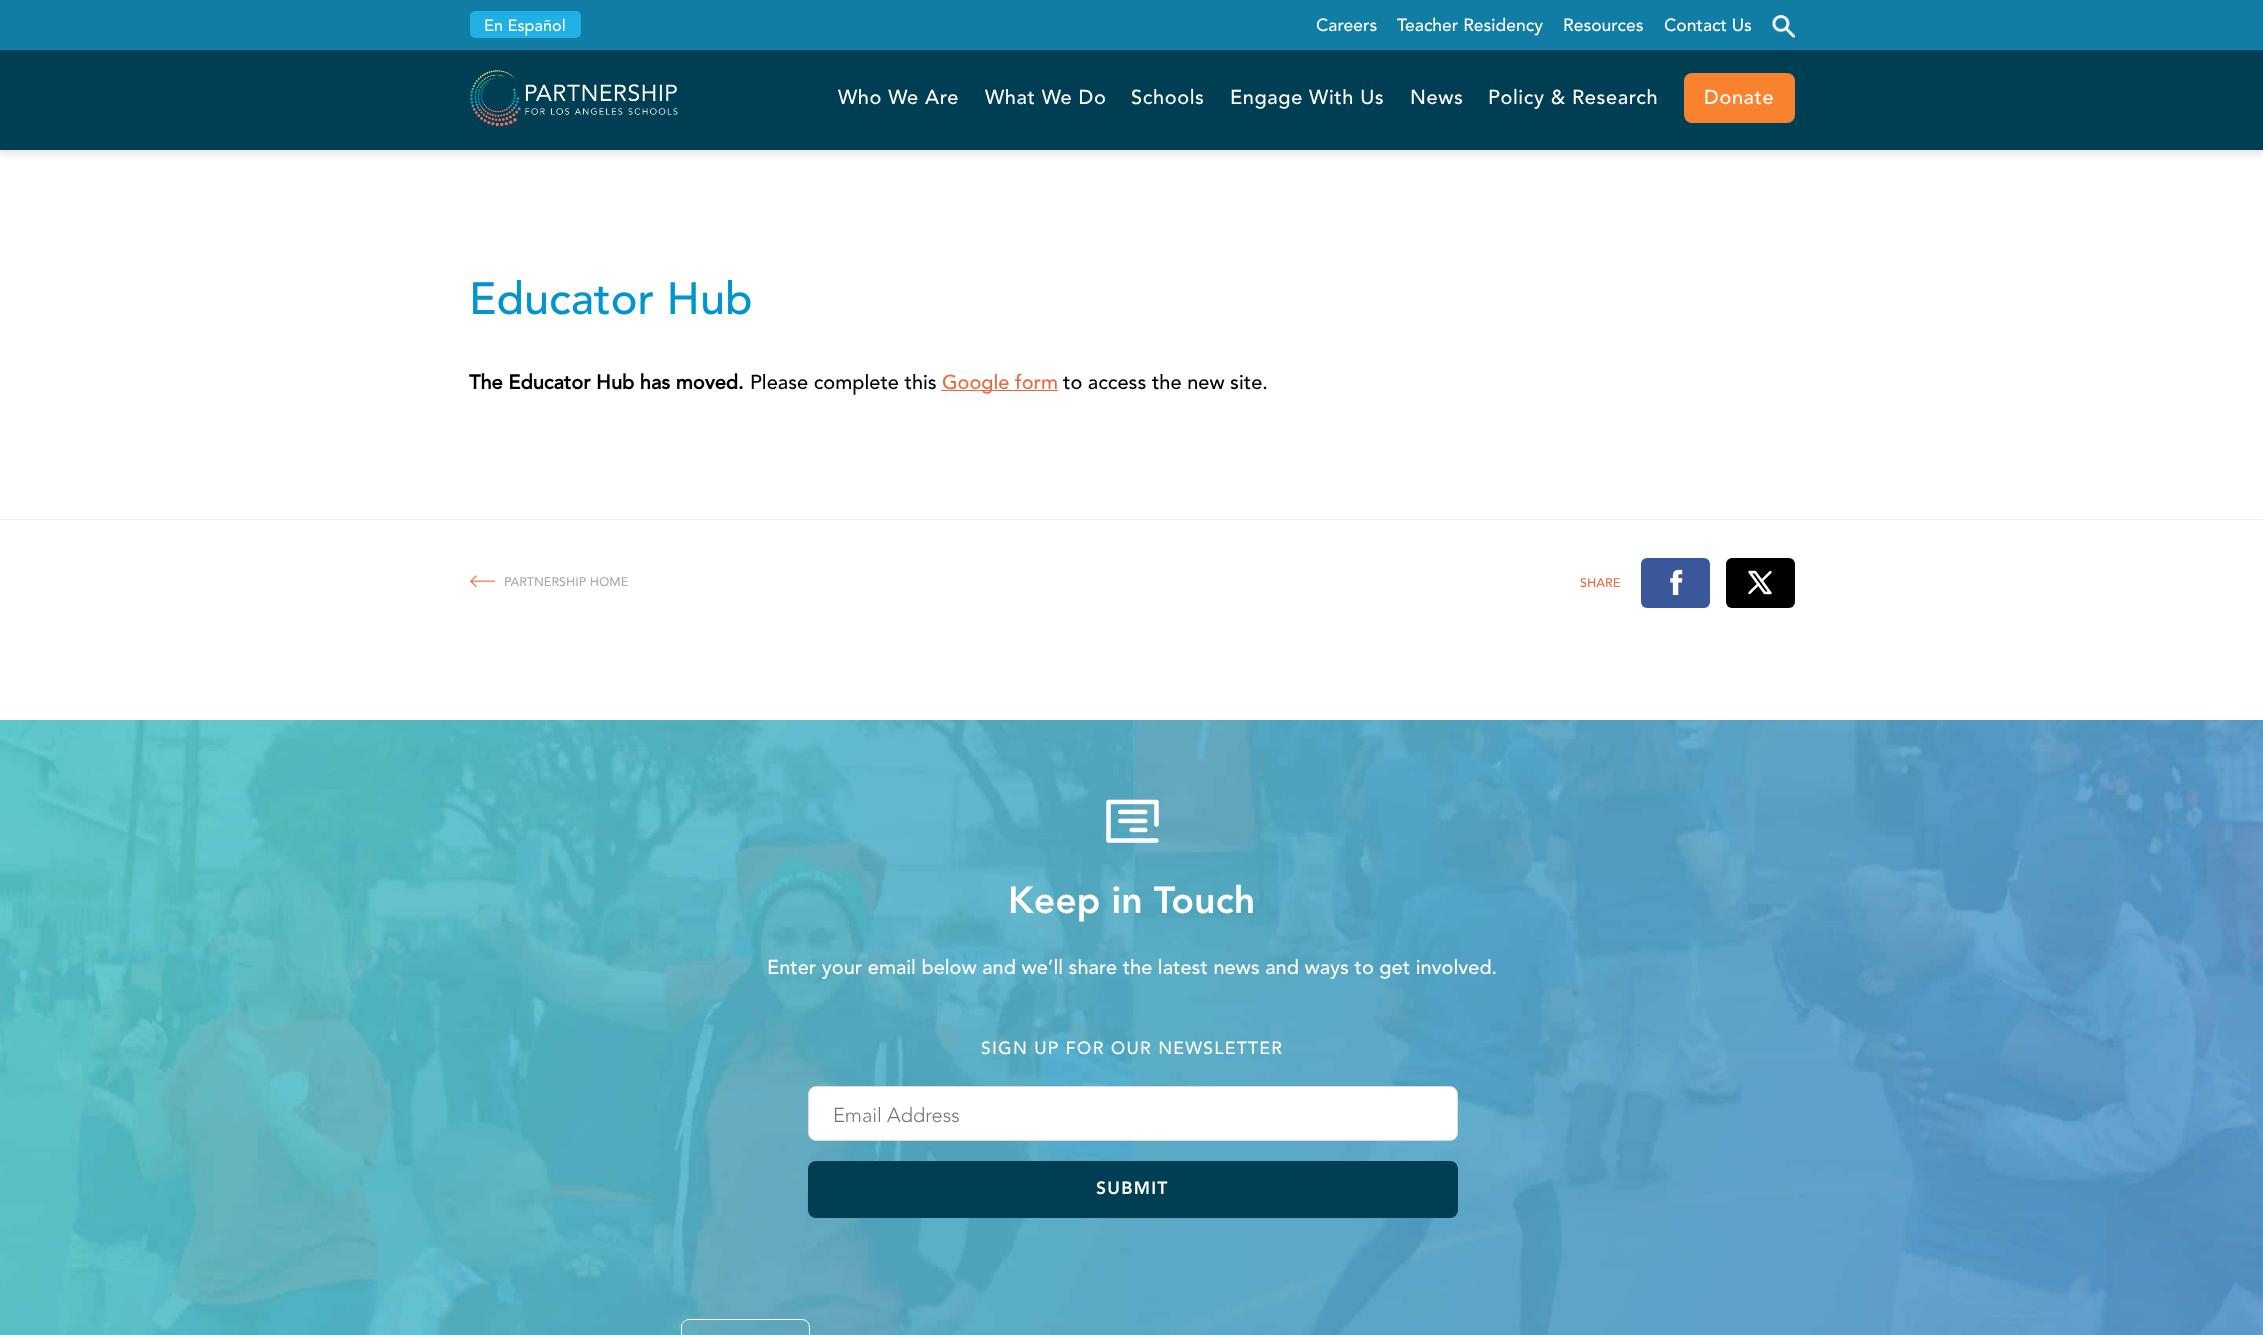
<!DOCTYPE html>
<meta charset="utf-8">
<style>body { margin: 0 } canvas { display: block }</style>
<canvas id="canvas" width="2263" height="1335"></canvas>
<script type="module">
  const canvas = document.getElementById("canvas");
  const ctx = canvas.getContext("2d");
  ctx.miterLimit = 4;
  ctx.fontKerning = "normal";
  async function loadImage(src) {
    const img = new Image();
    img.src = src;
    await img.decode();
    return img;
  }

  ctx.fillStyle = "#ffffff";
  ctx.fillRect(0, 0, 2263, 1335);
  ctx.fillStyle = "rgba(0, 0, 0, 0.12)";
  ctx.filter = "blur(4px)";
  ctx.beginPath();
  ctx.rect(-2, 48, 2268, 105);
  ctx.fill();
  ctx.filter = "none";
  ctx.fillStyle = "#117ca4";
  ctx.fillRect(0, 0, 2263, 50);
  ctx.fillStyle = "#21b0e3";
  ctx.beginPath();
  ctx.roundRect(470, 11, 111, 27, 5);
  ctx.fill();
  ctx.font = "500 16.25px Avenir";
  ctx.fillStyle = "#ffffff";
  ctx.fillText("En Español", 484, 31);
  ctx.font = "500 17.5px Avenir";
  ctx.fillText("Careers", 1316, 31);
  ctx.fillText("Teacher Residency", 1397, 31);
  ctx.fillText("Resources", 1563, 31);
  ctx.fillText("Contact Us", 1664, 31);
  ctx.drawImage(await loadImage("img1.png"), 1772, 15, 23, 23);
  ctx.fillStyle = "#003e54";
  ctx.fillRect(0, 50, 2263, 100);
  ctx.drawImage(await loadImage("img2.png"), 470, 70, 208, 57);
  ctx.letterSpacing = "0.6px";
  ctx.font = "500 20px Avenir";
  ctx.fillStyle = "#ffffff";
  ctx.fillText("Who We Are", 838, 104);
  ctx.fillText("What We Do", 985, 104);
  ctx.fillText("Schools", 1131, 104);
  ctx.fillText("Engage With Us", 1230, 104);
  ctx.fillText("News", 1410, 104);
  ctx.fillText("Policy & Research", 1488, 104);
  ctx.fillStyle = "#f8822d";
  ctx.beginPath();
  ctx.roundRect(1684, 73, 111, 50, 8);
  ctx.fill();
  ctx.fillStyle = "#ffffff";
  ctx.fillText("Donate", 1704, 104);
  ctx.letterSpacing = "0px";
  ctx.font = "500 45px Avenir";
  ctx.fillStyle = "#0095cd";
  ctx.fillText("Educator Hub", 469, 314);
  ctx.font = "bold 20px Avenir";
  ctx.fillStyle = "#000000";
  ctx.fillText("The Educator Hub has moved.", 469, 389);
  ctx.font = "500 20px Avenir";
  ctx.fillText("Please complete this", 750, 389);
  ctx.fillStyle = "#e76a40";
  ctx.fillRect(941, 390, 117, 1);
  ctx.fillText("Google form", 942, 389);
  ctx.fillStyle = "#000000";
  ctx.fillText("to access the new site.", 1063, 389);
  ctx.fillStyle = "#f0f0f0";
  ctx.fillRect(0, 519, 2263, 1);
  ctx.drawImage(await loadImage("img3.png"), 470, 575, 25, 13);
  ctx.font = "500 12.5px Avenir";
  ctx.fillStyle = "#aaaaad";
  ctx.fillText("PARTNERSHIP HOME", 504, 586);
  ctx.fillStyle = "#e76a40";
  ctx.fillText("SHARE", 1580, 587);
  ctx.fillStyle = "#39579a";
  ctx.beginPath();
  ctx.roundRect(1641, 558, 69, 50, 6);
  ctx.fill();
  ctx.drawImage(await loadImage("img4.png"), 1670, 569, 13, 26);
  ctx.fillStyle = "#000000";
  ctx.beginPath();
  ctx.roundRect(1726, 558, 69, 50, 6);
  ctx.fill();
  ctx.drawImage(await loadImage("img5.png"), 1748, 570, 24, 25);
  ctx.drawImage(await loadImage("img6.png"), 0, 720, 2263, 615);
  ctx.drawImage(await loadImage("img7.png"), 1106, 799, 53, 44);
  ctx.font = "900 37.5px Avenir";
  ctx.fillStyle = "#ffffff";
  ctx.fillText("Keep in Touch", 1008, 913);
  ctx.font = "500 20px Avenir";
  ctx.fillText("Enter your email below and we’ll share the latest news and ways to get involved.", 767, 974);
  ctx.letterSpacing = "1.25px";
  ctx.font = "500 17.5px Avenir";
  ctx.fillText("SIGN UP FOR OUR NEWSLETTER", 981, 1054);
  ctx.beginPath();
  ctx.roundRect(808.5, 1086.5, 649, 54, 7.5);
  ctx.fill();
  ctx.strokeStyle = "#dbdbdb";
  ctx.stroke();
  ctx.letterSpacing = "0px";
  ctx.font = "300 20px Avenir";
  ctx.fillStyle = "#757575";
  ctx.fillText("Email Address", 833, 1122);
  ctx.fillStyle = "#003e54";
  ctx.beginPath();
  ctx.roundRect(808, 1161, 650, 57, 8);
  ctx.fill();
  ctx.letterSpacing = "1.25px";
  ctx.font = "900 17.5px Avenir";
  ctx.fillStyle = "#ffffff";
  ctx.fillText("SUBMIT", 1096, 1194);
  ctx.beginPath();
  ctx.roundRect(681.5, 1319.5, 128, 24, 7.5);
  ctx.strokeStyle = "#ffffff";
  ctx.stroke();
</script>
